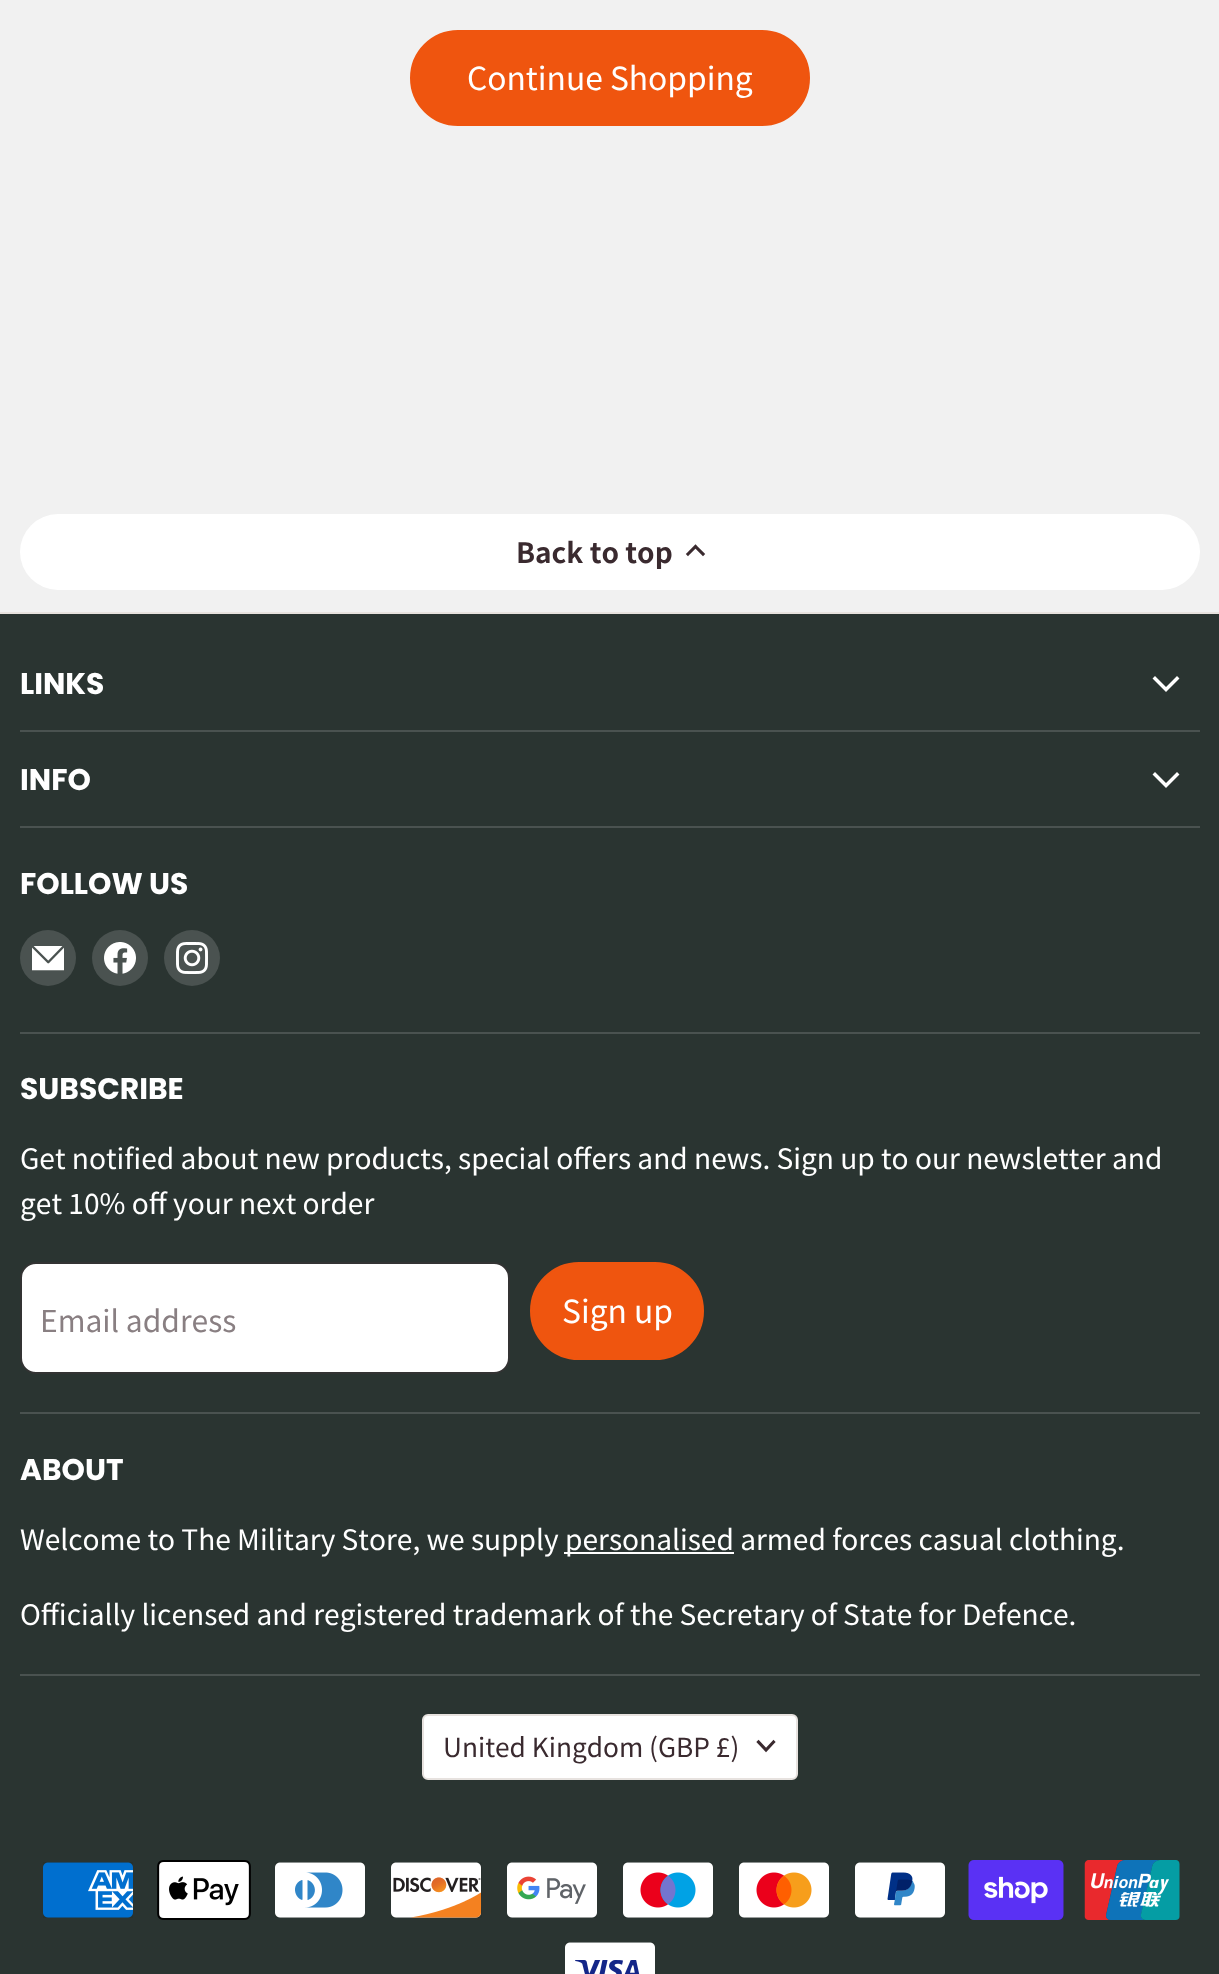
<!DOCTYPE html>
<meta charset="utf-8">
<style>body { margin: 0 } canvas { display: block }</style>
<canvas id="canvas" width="1219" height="1974"></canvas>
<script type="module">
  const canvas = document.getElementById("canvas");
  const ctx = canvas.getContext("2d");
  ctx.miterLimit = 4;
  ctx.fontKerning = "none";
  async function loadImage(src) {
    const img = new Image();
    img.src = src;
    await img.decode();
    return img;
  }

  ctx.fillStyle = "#f1f1f1";
  ctx.fillRect(0, 0, 1219, 1974);
  ctx.fillStyle = "#ef550f";
  ctx.beginPath();
  ctx.roundRect(411, 31, 398, 94, 47);
  ctx.fill();
  ctx.strokeStyle = "#ef550f";
  ctx.lineWidth = 2;
  ctx.stroke();
  ctx.font = "31.75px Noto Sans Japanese";
  ctx.fillStyle = "#ffffff";
  ctx.fillText("Continue Shopping", 467, 90);
  ctx.beginPath();
  ctx.roundRect(20, 514, 1180, 76, 38);
  ctx.fill();
  ctx.font = "bold 28px Noto Sans Japanese";
  ctx.fillStyle = "#3a2a2f";
  ctx.fillText("Back to top", 516, 563);
  ctx.beginPath();
  ctx.moveTo(695.5, 546.5);
  ctx.lineTo(688, 554);
  ctx.moveTo(695.5, 546.5);
  ctx.lineTo(703, 554);
  ctx.strokeStyle = "#3a2a2f";
  ctx.lineWidth = 3.1;
  ctx.lineCap = "square";
  ctx.stroke();
  ctx.fillStyle = "#2a3431";
  ctx.fillRect(0, 614, 1219, 1360);
  ctx.fillStyle = "#e7e2de";
  ctx.fillRect(0, 612, 1219, 2);
  ctx.fillStyle = "#4a5250";
  ctx.fillRect(20, 730, 1180, 2);
  ctx.font = "bold 29.75px Poppins";
  ctx.fillStyle = "#ffffff";
  ctx.fillText("LINKS", 20, 694);
  ctx.beginPath();
  ctx.moveTo(1166, 689.5);
  ctx.lineTo(1177, 678.5);
  ctx.moveTo(1166, 689.5);
  ctx.lineTo(1155, 678.5);
  ctx.strokeStyle = "#ffffff";
  ctx.lineWidth = 3.5;
  ctx.stroke();
  ctx.fillStyle = "#4a5250";
  ctx.fillRect(20, 826, 1180, 2);
  ctx.fillStyle = "#ffffff";
  ctx.fillText("INFO", 20, 790);
  ctx.beginPath();
  ctx.moveTo(1166, 785.5);
  ctx.lineTo(1177, 774.5);
  ctx.moveTo(1166, 785.5);
  ctx.lineTo(1155, 774.5);
  ctx.stroke();
  ctx.fillStyle = "#4a5250";
  ctx.fillRect(20, 1032, 1180, 2);
  ctx.fillStyle = "#ffffff";
  ctx.fillText("FOLLOW US", 20, 894);
  ctx.fillStyle = "#4a5250";
  ctx.beginPath();
  ctx.arc(48, 958, 28, 0, Math.PI * 2);
  ctx.fill();
  ctx.drawImage(await loadImage("img1.png"), 32, 946, 32, 25);
  ctx.beginPath();
  ctx.arc(120, 958, 28, 0, Math.PI * 2);
  ctx.fill();
  ctx.drawImage(await loadImage("img2.png"), 104, 942, 32, 32);
  ctx.beginPath();
  ctx.arc(192, 958, 28, 0, Math.PI * 2);
  ctx.fill();
  ctx.drawImage(await loadImage("img3.png"), 176, 942, 32, 32);
  ctx.fillRect(20, 1412, 1180, 2);
  ctx.fillStyle = "#ffffff";
  ctx.fillText("SUBSCRIBE", 20, 1099);
  ctx.font = "28.1px Noto Sans Japanese";
  ctx.fillText("Get notified about new products, special offers and news. Sign up to our newsletter and", 20, 1169);
  ctx.fillText("get 10% off your next order", 20, 1214);
  ctx.beginPath();
  ctx.roundRect(21, 1263, 488, 110, 15);
  ctx.fill();
  ctx.strokeStyle = "#333333";
  ctx.lineWidth = 2;
  ctx.stroke();
  ctx.font = "30px Noto Sans Japanese";
  ctx.fillStyle = "#897f82";
  ctx.fillText("Email address", 40, 1332);
  ctx.fillStyle = "#ef550f";
  ctx.beginPath();
  ctx.roundRect(531, 1263, 172, 96, 48);
  ctx.fill();
  ctx.strokeStyle = "#ef550f";
  ctx.stroke();
  ctx.font = "31.75px Noto Sans Japanese";
  ctx.fillStyle = "#ffffff";
  ctx.fillText("Sign up", 562, 1323);
  ctx.fillStyle = "#4a5250";
  ctx.fillRect(20, 1674, 1180, 2);
  ctx.font = "bold 29.75px Poppins";
  ctx.fillStyle = "#ffffff";
  ctx.fillText("ABOUT", 20, 1480);
  ctx.font = "28.1px Noto Sans Japanese";
  ctx.fillText("Welcome to The Military Store, we supply", 20, 1550);
  ctx.fillRect(564, 1552, 170, 2);
  ctx.fillText("personalised armed forces casual clothing.", 565, 1550);
  ctx.fillText("Officially licensed and registered trademark of the Secretary of", 20, 1625);
  ctx.fillText("State for Defence.", 843, 1625);
  ctx.beginPath();
  ctx.roundRect(423, 1715, 374, 64, 5);
  ctx.fill();
  ctx.strokeStyle = "#e7e2df";
  ctx.stroke();
  ctx.font = "26.25px Noto Sans Japanese";
  ctx.fillStyle = "#3a2a2f";
  ctx.fillText("United Kingdom (GBP £)", 443, 1757);
  ctx.beginPath();
  ctx.moveTo(766, 1750);
  ctx.lineTo(773.5, 1742);
  ctx.moveTo(766, 1750);
  ctx.lineTo(758.5, 1742);
  ctx.strokeStyle = "#3a2a2f";
  ctx.lineWidth = 3.1;
  ctx.stroke();
  ctx.drawImage(await loadImage("img4.png"), 43, 1862, 90, 56);
  ctx.drawImage(await loadImage("img5.png"), 157, 1860, 94, 60);
  ctx.drawImage(await loadImage("img6.png"), 275, 1862, 90, 56);
  ctx.drawImage(await loadImage("img7.png"), 391, 1862, 91, 56);
  ctx.drawImage(await loadImage("img8.png"), 507, 1862, 90, 56);
  ctx.drawImage(await loadImage("img9.png"), 623, 1862, 90, 56);
  ctx.drawImage(await loadImage("img10.png"), 739, 1862, 90, 56);
  ctx.drawImage(await loadImage("img11.png"), 855, 1862, 90, 56);
  ctx.drawImage(await loadImage("img12.png"), 968, 1860, 96, 60);
  ctx.drawImage(await loadImage("img13.png"), 1084, 1860, 96, 60);
  ctx.drawImage(await loadImage("img14.png"), 565, 1942, 90, 32);
</script>
